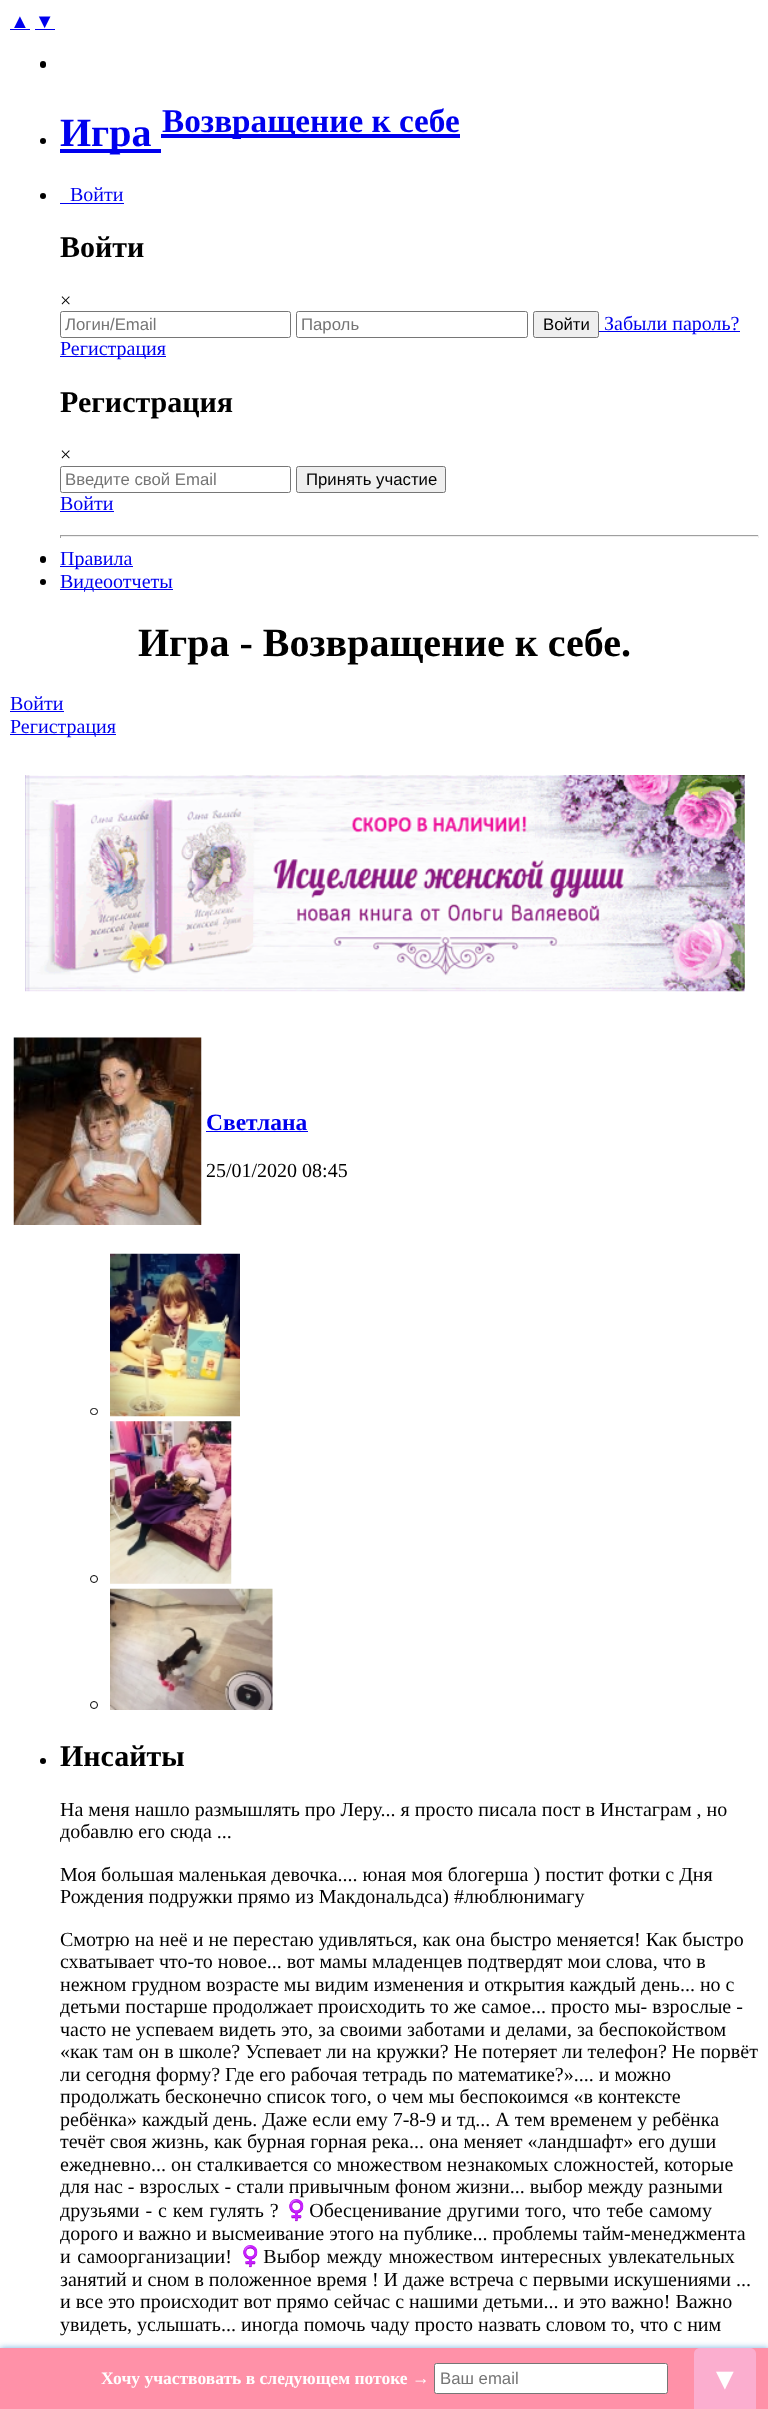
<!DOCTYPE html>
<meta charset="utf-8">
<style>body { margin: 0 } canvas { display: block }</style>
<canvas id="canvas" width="768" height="2409"></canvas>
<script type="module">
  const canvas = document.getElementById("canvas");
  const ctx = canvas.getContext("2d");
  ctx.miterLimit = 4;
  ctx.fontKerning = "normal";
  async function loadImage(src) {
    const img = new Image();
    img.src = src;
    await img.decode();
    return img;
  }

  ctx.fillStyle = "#ffffff";
  ctx.fillRect(0, 0, 768, 2409);
  ctx.font = "20px Liberation Serif";
  ctx.fillStyle = "#0000ee";
  ctx.fillText("▲ ▼", 10, 28);
  ctx.fillRect(10, 29, 20, 1);
  ctx.fillRect(35, 29, 20, 1);
  ctx.fillStyle = "#000000";
  ctx.beginPath();
  ctx.roundRect(40, 61, 6, 7, 3);
  ctx.fill();
  ctx.beginPath();
  ctx.arc(43, 141, 3, 0, Math.PI * 2);
  ctx.fill();
  ctx.fillStyle = "#0000ee";
  ctx.fillRect(60, 149, 101, 4);
  ctx.font = "bold 40px Liberation Serif";
  ctx.fillText("Игра", 60, 146);
  ctx.fillRect(161, 134, 299, 4);
  ctx.font = "bold 33.25px Liberation Serif";
  ctx.fillText("Возвращение к себе", 162, 132);
  ctx.fillStyle = "#000000";
  ctx.beginPath();
  ctx.arc(43, 196, 3, 0, Math.PI * 2);
  ctx.fill();
  ctx.font = "20px Liberation Serif";
  ctx.fillStyle = "#0000ee";
  ctx.fillText("Войти", 70, 201);
  ctx.fillRect(60, 203, 64, 1);
  ctx.font = "bold 30px Liberation Serif";
  ctx.fillStyle = "#000000";
  ctx.fillText("Войти", 60, 257);
  ctx.font = "20px Liberation Serif";
  ctx.fillText("×", 60, 307);
  ctx.beginPath();
  ctx.roundRect(60.5, 311.5, 230, 26, 2);
  ctx.strokeStyle = "#767676";
  ctx.stroke();
  ctx.font = "16.75px Liberation Sans";
  ctx.fillStyle = "#757575";
  ctx.fillText("Логин/Email", 65, 330);
  ctx.beginPath();
  ctx.roundRect(296.5, 311.5, 231, 26, 2);
  ctx.stroke();
  ctx.fillText("Пароль", 301, 330);
  ctx.fillStyle = "#efefef";
  ctx.beginPath();
  ctx.roundRect(533.5, 311.5, 65, 26, 2);
  ctx.fill();
  ctx.stroke();
  ctx.fillStyle = "#000000";
  ctx.fillText("Войти", 543, 330);
  ctx.fillStyle = "#0000ee";
  ctx.fillRect(599, 331, 141, 1);
  ctx.font = "20px Liberation Serif";
  ctx.fillText("Забыли пароль?", 604, 330);
  ctx.fillRect(60, 356, 106, 1);
  ctx.fillText("Регистрация", 60, 355);
  ctx.font = "bold 30px Liberation Serif";
  ctx.fillStyle = "#000000";
  ctx.fillText("Регистрация", 60, 412);
  ctx.font = "20px Liberation Serif";
  ctx.fillText("×", 60, 461);
  ctx.beginPath();
  ctx.roundRect(60.5, 466.5, 230, 26, 2);
  ctx.stroke();
  ctx.font = "16.75px Liberation Sans";
  ctx.fillStyle = "#757575";
  ctx.fillText("Введите свой Email", 65, 485);
  ctx.fillStyle = "#efefef";
  ctx.beginPath();
  ctx.roundRect(296.5, 466.5, 149, 26, 2);
  ctx.fill();
  ctx.stroke();
  ctx.fillStyle = "#000000";
  ctx.fillText("Принять участие", 306, 485);
  ctx.font = "20px Liberation Serif";
  ctx.fillStyle = "#0000ee";
  ctx.fillText("Войти", 60, 510);
  ctx.fillRect(60, 511, 54, 1);
  ctx.fillStyle = "#9f9f9f";
  ctx.fillRect(60, 535, 699, 1);
  ctx.fillStyle = "#eeeeee";
  ctx.fillRect(758, 535, 1, 3);
  ctx.fillRect(60, 536, 699, 1);
  ctx.fillStyle = "#9f9f9f";
  ctx.fillRect(60, 535, 1, 3);
  ctx.fillStyle = "#000000";
  ctx.beginPath();
  ctx.roundRect(40, 556, 6, 7, 3);
  ctx.fill();
  ctx.fillStyle = "#0000ee";
  ctx.fillRect(60, 566, 73, 1);
  ctx.fillText("Правила", 60, 565);
  ctx.fillStyle = "#000000";
  ctx.beginPath();
  ctx.arc(43, 582, 3, 0, Math.PI * 2);
  ctx.fill();
  ctx.fillStyle = "#0000ee";
  ctx.fillRect(60, 589, 113, 1);
  ctx.fillText("Видеоотчеты", 60, 588);
  ctx.font = "bold 40px Liberation Serif";
  ctx.fillStyle = "#000000";
  ctx.fillText("Игра - Возвращение к себе.", 138, 656);
  ctx.font = "20px Liberation Serif";
  ctx.fillStyle = "#0000ee";
  ctx.fillText("Войти", 10, 710);
  ctx.fillRect(10, 711, 54, 1);
  ctx.fillRect(10, 734, 106, 1);
  ctx.fillText("Регистрация", 10, 733);
  ctx.drawImage(await loadImage("img1.png"), 25, 775, 720, 217);
  ctx.drawImage(await loadImage("img2.png"), 13, 1037, 189, 188);
  ctx.font = "bold 23.5px Liberation Serif";
  ctx.fillText("Светлана", 206, 1130);
  ctx.fillRect(206, 1131, 102, 1);
  ctx.font = "20px Liberation Serif";
  ctx.fillStyle = "#000000";
  ctx.fillText("25/01/2020 08:45", 206, 1177);
  ctx.beginPath();
  ctx.roundRect(90.5, 1408.5, 7, 6, 3);
  ctx.strokeStyle = "#000000";
  ctx.stroke();
  ctx.drawImage(await loadImage("img3.png"), 110, 1253, 130, 164);
  ctx.beginPath();
  ctx.arc(94, 1579, 3.5, 0, Math.PI * 2);
  ctx.stroke();
  ctx.drawImage(await loadImage("img4.png"), 110, 1421, 122, 163);
  ctx.beginPath();
  ctx.arc(94, 1705, 3.5, 0, Math.PI * 2);
  ctx.stroke();
  ctx.drawImage(await loadImage("img5.png"), 110, 1588, 163, 122);
  ctx.beginPath();
  ctx.arc(43, 1761, 3, 0, Math.PI * 2);
  ctx.fill();
  ctx.font = "bold 30px Liberation Serif";
  ctx.fillText("Инсайты", 60, 1766);
  ctx.font = "20px Liberation Serif";
  ctx.fillText("На меня нашло размышлять про Леру... я просто писала пост в Инстаграм , но", 60, 1816);
  ctx.fillText("добавлю его сюда ...", 60, 1838);
  ctx.fillText("Моя большая маленькая девочка.... юная моя блогерша ) постит фотки с Дня", 60, 1881);
  ctx.fillText("Рождения подружки прямо из Макдональдса) #люблюнимагу", 60, 1903);
  ctx.fillText("Смотрю на неё и не перестаю удивляться, как она быстро меняется! Как быстро", 60, 1946);
  ctx.fillText("схватывает что-то новое... вот мамы младенцев подтвердят мои слова, что в", 60, 1968);
  ctx.fillText("нежном грудном возрасте мы видим изменения и открытия каждый день... но с", 60, 1991);
  ctx.fillText("детьми постарше продолжает происходить то же самое... просто мы- взрослые -", 60, 2013);
  ctx.fillText("часто не успеваем видеть это, за своими заботами и делами, за беспокойством", 60, 2036);
  ctx.fillText("«как там он в школе? Успевает ли на кружки? Не потеряет ли телефон? Не порвёт", 60, 2058);
  ctx.fillText("ли сегодня форму? Где его рабочая тетрадь по математике?».... и можно", 60, 2081);
  ctx.fillText("продолжать бесконечно список того, о чем мы беспокоимся «в контексте", 60, 2103);
  ctx.fillText("ребёнка» каждый день. Даже если ему 7-8-9 и тд... А тем временем у ребёнка", 60, 2126);
  ctx.fillText("течёт своя жизнь, как бурная горная река... она меняет «ландшафт» его души", 60, 2148);
  ctx.fillText("ежедневно... он сталкивается со множеством незнакомых сложностей, которые", 60, 2171);
  ctx.fillText("для нас - взрослых - стали привычным фоном жизни... выбор между разными", 60, 2193);
  ctx.wordSpacing = "0.9px";
  ctx.fillText("друзьями - с кем гулять ? ‍♀️Обесценивание другими того, что тебе самому", 60, 2217);
  ctx.wordSpacing = "0px";
  ctx.fillText("дорого и важно и высмеивание этого на публике... проблемы тайм-менеджмента", 60, 2240);
  ctx.wordSpacing = "1.5px";
  ctx.fillText("и самоорганизации! ‍♀️Выбор между множеством интересных увлекательных", 60, 2263);
  ctx.wordSpacing = "0px";
  ctx.fillText("занятий и сном в положенное время ! И даже встреча с первыми искушениями ...", 60, 2286);
  ctx.fillText("и все это происходит вот прямо сейчас с нашими детьми... и это важно! Важно", 60, 2308);
  ctx.fillText("увидеть, услышать... иногда помочь чаду просто назвать словом то, что с ним", 60, 2331);
  ctx.fillStyle = "#71b0de";
  ctx.filter = "blur(3px)";
  ctx.beginPath();
  ctx.rect(0, 2348, 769, 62);
  ctx.fill();
  ctx.filter = "none";
  ctx.fillStyle = "#ff91a8";
  ctx.fillRect(0, 2348, 768, 61);
  ctx.font = "bold 17.5px Liberation Serif";
  ctx.fillStyle = "#ffffff";
  ctx.fillText("Хочу участвовать в следующем потоке →", 101, 2384);
  ctx.beginPath();
  ctx.roundRect(434.5, 2363.5, 233, 30, 2);
  ctx.fill();
  ctx.strokeStyle = "#767676";
  ctx.stroke();
  ctx.font = "16.75px Liberation Sans";
  ctx.fillStyle = "#757575";
  ctx.fillText("Ваш email", 440, 2384);
  ctx.fillStyle = "#fbaecf";
  ctx.beginPath();
  ctx.moveTo(700, 2348);
  ctx.lineTo(750, 2348);
  ctx.bezierCurveTo(753.5, 2348, 756, 2350.5, 756, 2354);
  ctx.lineTo(756, 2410);
  ctx.lineTo(694, 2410);
  ctx.lineTo(694, 2354);
  ctx.bezierCurveTo(694, 2350.5, 696.5, 2348, 700, 2348);
  ctx.closePath();
  ctx.fill();
  ctx.font = "bold 30px Liberation Serif";
  ctx.fillStyle = "#ffffff";
  ctx.fillText("▼", 710, 2389);
</script>
